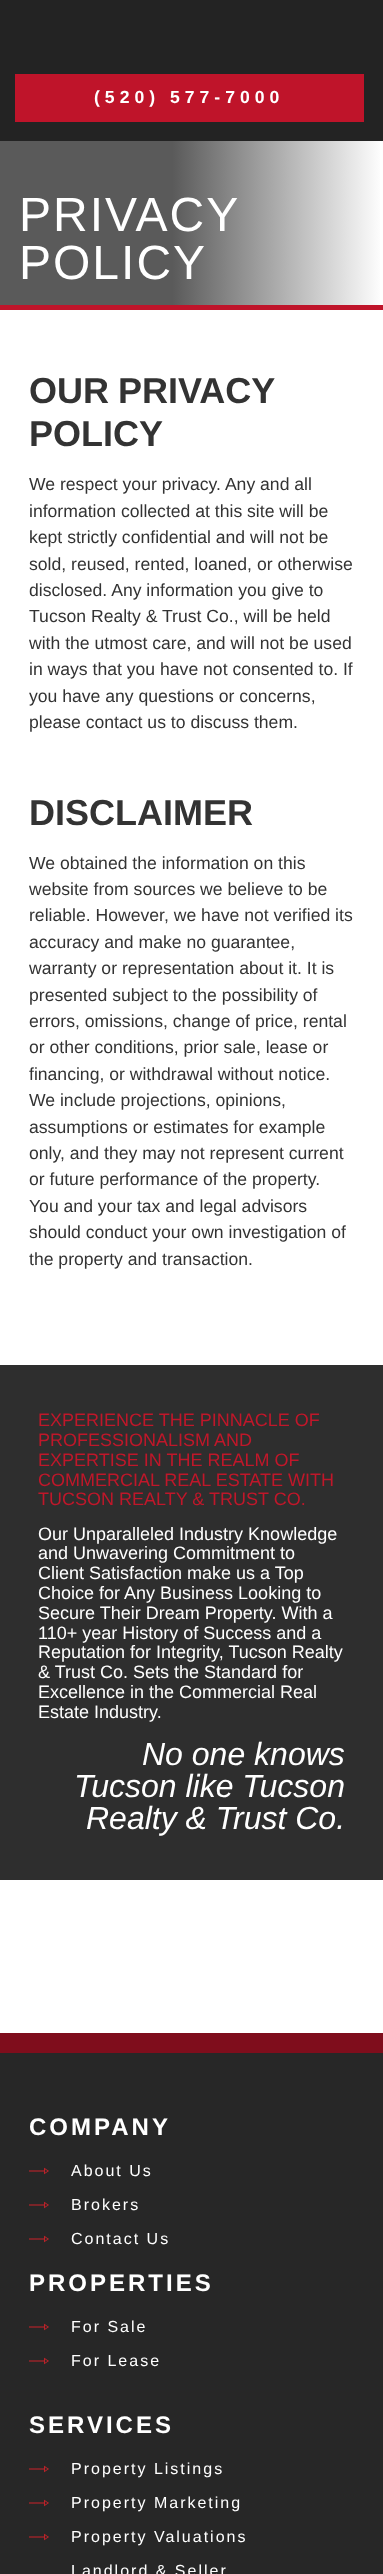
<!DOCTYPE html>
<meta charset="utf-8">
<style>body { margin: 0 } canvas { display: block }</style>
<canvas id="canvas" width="383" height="2574"></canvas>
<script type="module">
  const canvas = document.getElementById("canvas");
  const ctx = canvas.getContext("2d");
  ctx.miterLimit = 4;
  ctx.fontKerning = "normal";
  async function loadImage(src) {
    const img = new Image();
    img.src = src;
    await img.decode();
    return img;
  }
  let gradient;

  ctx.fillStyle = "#ffffff";
  ctx.fillRect(0, 0, 383, 2574);
  ctx.fillStyle = "#272727";
  ctx.fillRect(0, 2053, 383, 521);
  ctx.fillStyle = "#232323";
  ctx.fillRect(0, 0, 383, 141);
  ctx.fillStyle = "#bf142a";
  ctx.fillRect(15, 74, 349, 48);
  ctx.letterSpacing = "5px";
  ctx.font = "bold 17.6px Liberation Sans";
  ctx.fillStyle = "#ffffff";
  ctx.fillText("(520) 577-7000", 94, 103);
  ctx.fillStyle = "#bf142a";
  ctx.fillRect(0, 305, 383, 5);
  gradient = ctx.createLinearGradient(0, 154, 383, 154);
  gradient.addColorStop(0.45, "#5a5a5a");
  gradient.addColorStop(1, "#ffffff");
  ctx.fillStyle = gradient;
  ctx.fillRect(0, 141, 380, 164);
  ctx.letterSpacing = "2px";
  ctx.font = "48px Liberation Sans";
  ctx.fillStyle = "#ffffff";
  ctx.fillText("PRIVACY", 19, 231);
  ctx.fillText("POLICY", 19, 279);
  ctx.letterSpacing = "0px";
  ctx.wordSpacing = "-1px";
  ctx.font = "bold 36px Liberation Sans";
  ctx.fillStyle = "#333333";
  ctx.fillText("OUR PRIVACY", 29, 403);
  ctx.wordSpacing = "0px";
  ctx.fillText("POLICY", 29, 446);
  ctx.font = "17.6px Liberation Sans";
  ctx.fillText("We respect your privacy. Any and all", 29, 490);
  ctx.fillText("information collected at this site will be", 29, 517);
  ctx.fillText("kept strictly confidential and will not be", 29, 543);
  ctx.fillText("sold, reused, rented, loaned, or otherwise", 29, 570);
  ctx.fillText("disclosed. Any information you give to", 29, 596);
  ctx.fillText("Tucson Realty & Trust Co., will be held", 29, 622);
  ctx.fillText("with the utmost care, and will not be used", 29, 649);
  ctx.fillText("in ways that you have not consented to. If", 29, 675);
  ctx.fillText("you have any questions or concerns,", 29, 702);
  ctx.fillText("please contact us to discuss them.", 29, 728);
  ctx.font = "bold 36px Liberation Sans";
  ctx.fillText("DISCLAIMER", 29, 825);
  ctx.font = "17.6px Liberation Sans";
  ctx.fillText("We obtained the information on this", 29, 869);
  ctx.fillText("website from sources we believe to be", 29, 895);
  ctx.fillText("reliable. However, we have not verified its", 29, 921);
  ctx.fillText("accuracy and make no guarantee,", 29, 948);
  ctx.fillText("warranty or representation about it. It is", 29, 974);
  ctx.fillText("presented subject to the possibility of", 29, 1001);
  ctx.fillText("errors, omissions, change of price, rental", 29, 1027);
  ctx.fillText("or other conditions, prior sale, lease or", 29, 1053);
  ctx.fillText("financing, or withdrawal without notice.", 29, 1080);
  ctx.fillText("We include projections, opinions,", 29, 1106);
  ctx.fillText("assumptions or estimates for example", 29, 1133);
  ctx.fillText("only, and they may not represent current", 29, 1159);
  ctx.fillText("or future performance of the property.", 29, 1185);
  ctx.fillText("You and your tax and legal advisors", 29, 1212);
  ctx.fillText("should conduct your own investigation of", 29, 1238);
  ctx.fillText("the property and transaction.", 29, 1265);
  ctx.fillStyle = "#2e2e2e";
  ctx.fillRect(0, 1365, 383, 515);
  ctx.font = "18px Liberation Sans";
  ctx.fillStyle = "#c0172a";
  ctx.fillText("EXPERIENCE THE PINNACLE OF", 38, 1426);
  ctx.fillText("PROFESSIONALISM AND", 38, 1446);
  ctx.fillText("EXPERTISE IN THE REALM OF", 38, 1466);
  ctx.fillText("COMMERCIAL REAL ESTATE WITH", 38, 1486);
  ctx.fillText("TUCSON REALTY & TRUST CO.", 38, 1505);
  ctx.fillStyle = "#ffffff";
  ctx.fillText("Our Unparalleled Industry Knowledge", 38, 1540);
  ctx.fillText("and Unwavering Commitment to", 38, 1559);
  ctx.fillText("Client Satisfaction make us a Top", 38, 1579);
  ctx.fillText("Choice for Any Business Looking to", 38, 1599);
  ctx.fillText("Secure Their Dream Property. With a", 38, 1619);
  ctx.fillText("110+ year History of Success and a", 38, 1639);
  ctx.fillText("Reputation for Integrity, Tucson Realty", 38, 1658);
  ctx.fillText("& Trust Co. Sets the Standard for", 38, 1678);
  ctx.fillText("Excellence in the Commercial Real", 38, 1698);
  ctx.fillText("Estate Industry.", 38, 1718);
  ctx.font = "italic 32px Liberation Sans";
  ctx.fillText("No one knows", 142, 1765);
  ctx.fillText("Tucson like Tucson", 74, 1797);
  ctx.fillText("Realty & Trust Co.", 86, 1829);
  ctx.fillStyle = "#7f0d1c";
  ctx.fillRect(0, 2033, 383, 20);
  ctx.letterSpacing = "3px";
  ctx.font = "bold 24px Liberation Sans";
  ctx.fillStyle = "#ffffff";
  ctx.fillText("COMPANY", 29, 2135);
  ctx.drawImage(await loadImage("img1.png"), 29, 2167, 20, 8);
  ctx.letterSpacing = "2px";
  ctx.font = "16px Liberation Sans";
  ctx.fillText("About Us", 71, 2176);
  ctx.drawImage(await loadImage("img1.png"), 29, 2201, 20, 8);
  ctx.fillText("Brokers", 71, 2210);
  ctx.drawImage(await loadImage("img1.png"), 29, 2235, 20, 8);
  ctx.fillText("Contact Us", 71, 2244);
  ctx.letterSpacing = "3px";
  ctx.font = "bold 24px Liberation Sans";
  ctx.fillText("PROPERTIES", 29, 2291);
  ctx.drawImage(await loadImage("img1.png"), 29, 2323, 20, 8);
  ctx.letterSpacing = "2px";
  ctx.font = "16px Liberation Sans";
  ctx.fillText("For Sale", 71, 2332);
  ctx.drawImage(await loadImage("img1.png"), 29, 2357, 20, 8);
  ctx.fillText("For Lease", 71, 2366);
  ctx.letterSpacing = "3px";
  ctx.font = "bold 24px Liberation Sans";
  ctx.fillText("SERVICES", 29, 2433);
  ctx.drawImage(await loadImage("img1.png"), 29, 2465, 20, 8);
  ctx.letterSpacing = "2px";
  ctx.font = "16px Liberation Sans";
  ctx.fillText("Property Listings", 71, 2474);
  ctx.drawImage(await loadImage("img1.png"), 29, 2499, 20, 8);
  ctx.fillText("Property Marketing", 71, 2508);
  ctx.drawImage(await loadImage("img1.png"), 29, 2533, 20, 8);
  ctx.fillText("Property Valuations", 71, 2542);
  ctx.fillText("Landlord & Seller", 71, 2576);
</script>
